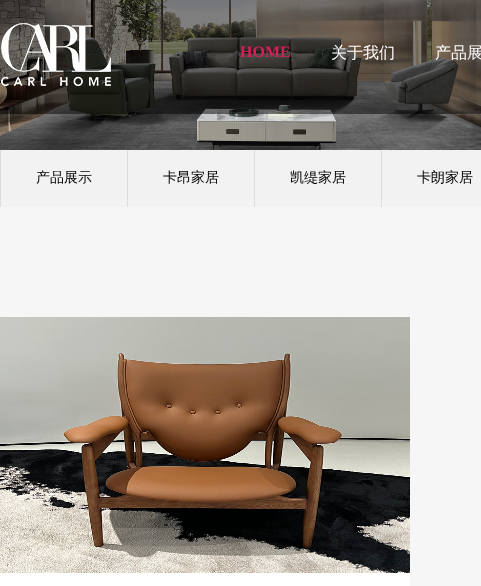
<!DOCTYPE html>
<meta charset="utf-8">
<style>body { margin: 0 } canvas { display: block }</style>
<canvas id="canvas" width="481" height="586"></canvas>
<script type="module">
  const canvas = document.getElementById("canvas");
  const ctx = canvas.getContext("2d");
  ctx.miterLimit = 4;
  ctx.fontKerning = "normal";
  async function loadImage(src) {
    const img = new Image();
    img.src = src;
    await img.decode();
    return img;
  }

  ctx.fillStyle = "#f2f2f2";
  ctx.fillRect(0, 0, 481, 586);
  ctx.fillStyle = "#dddddd";
  ctx.fillRect(0, 149, 1, 58);
  ctx.fillRect(127, 149, 1, 58);
  ctx.fillRect(254, 149, 1, 58);
  ctx.fillRect(381, 149, 1, 58);
  ctx.drawImage(await loadImage("img1.png"), 0, 0, 481, 150);
  ctx.fillStyle = "rgba(0, 0, 0, 0.5)";
  ctx.fillRect(0, 0, 481, 114);
  ctx.drawImage(await loadImage("img2.png"), 1, 23, 110, 63);
  ctx.font = "bold 16px Liberation Serif";
  ctx.fillStyle = "#d32159";
  ctx.fillText("HOME", 240, 57);
  ctx.font = "500 16px WenQuanYi Zen Hei";
  ctx.fillStyle = "#ffffff";
  ctx.fillText("关于我们", 331, 58);
  ctx.fillText("产品展", 435, 58);
  ctx.font = "500 14px WenQuanYi Zen Hei";
  ctx.fillStyle = "#000000";
  ctx.fillText("产品展示", 36, 182);
  ctx.fillText("卡昂家居", 163, 182);
  ctx.fillText("凯缇家居", 290, 182);
  ctx.fillText("卡朗家居", 417, 182);
  ctx.fillStyle = "#f6f6f6";
  ctx.fillRect(0, 207, 481, 379);
  ctx.fillStyle = "#ffffff";
  ctx.fillRect(0, 573, 410, 13);
  ctx.drawImage(await loadImage("img3.png"), 0, 317, 410, 256);
</script>
